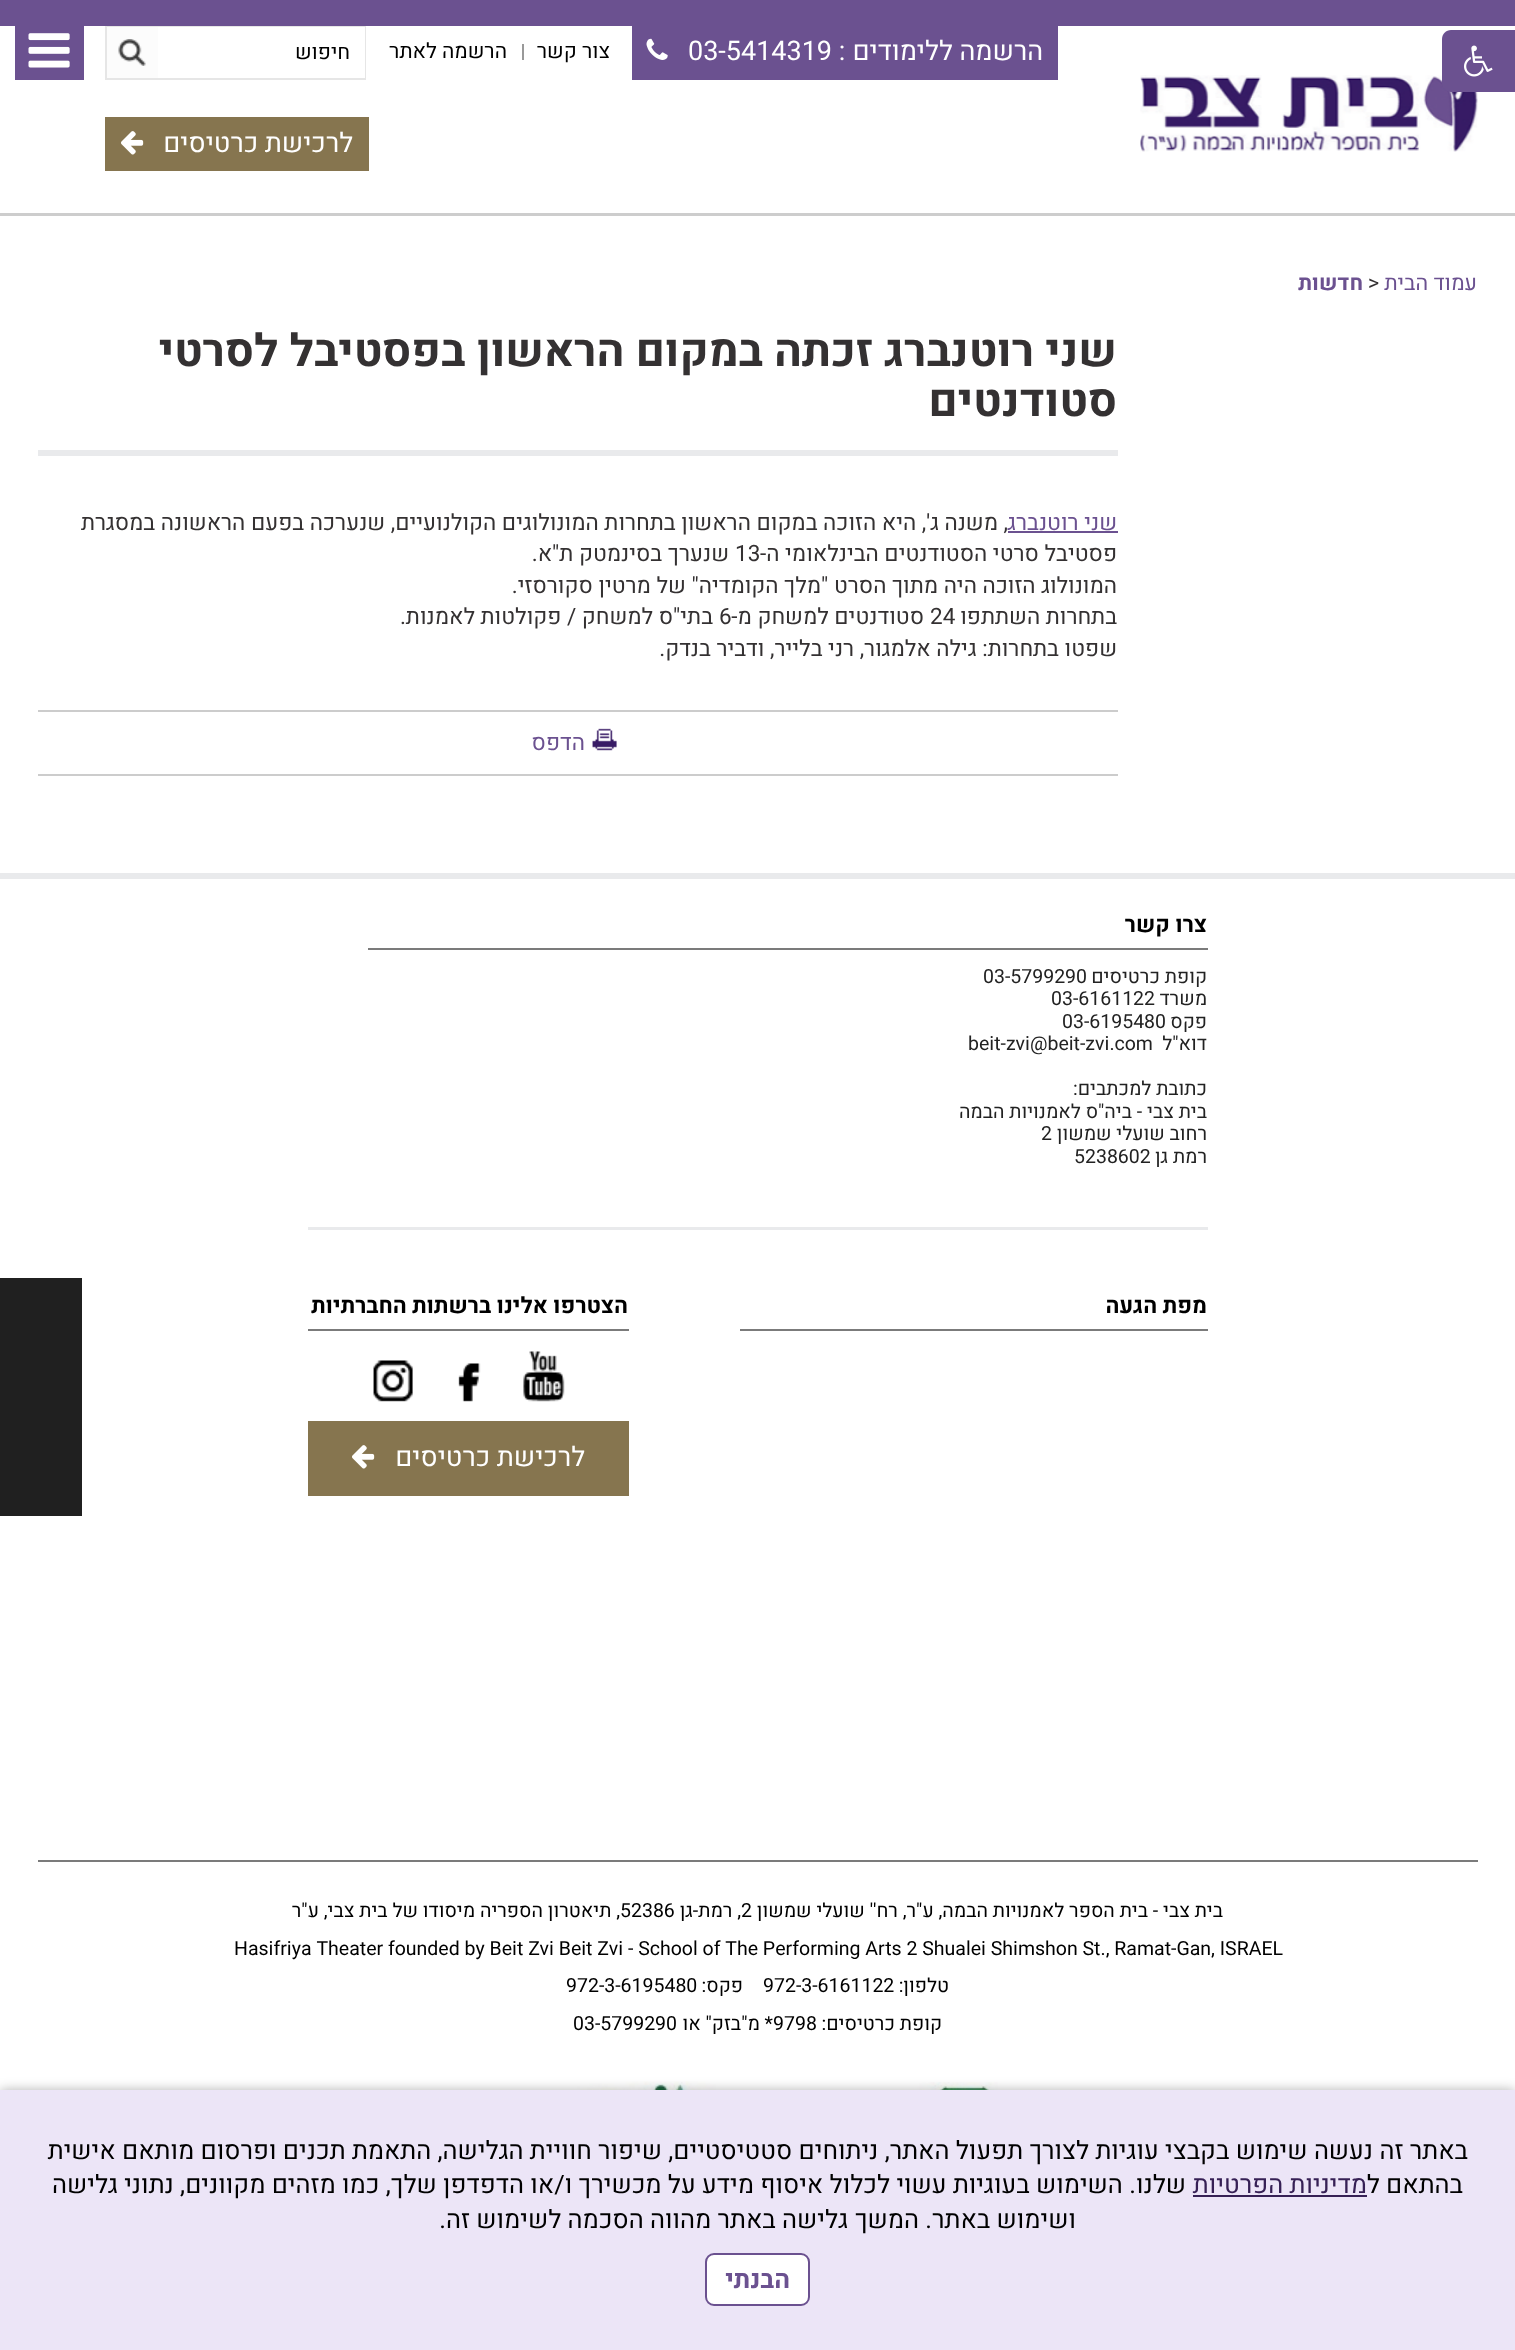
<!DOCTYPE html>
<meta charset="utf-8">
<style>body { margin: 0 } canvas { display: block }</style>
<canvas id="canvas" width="1515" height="2350"></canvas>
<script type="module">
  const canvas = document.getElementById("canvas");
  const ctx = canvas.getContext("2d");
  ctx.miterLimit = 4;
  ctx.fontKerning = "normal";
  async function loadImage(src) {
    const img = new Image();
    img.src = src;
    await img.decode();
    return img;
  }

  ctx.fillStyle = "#ffffff";
  ctx.fillRect(0, 0, 1515, 2350);
  ctx.drawImage(await loadImage("img2.png"), 1140, 70, 338, 82);
  ctx.fillStyle = "#6b5190";
  ctx.beginPath();
  ctx.moveTo(1451, 30);
  ctx.lineTo(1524, 30);
  ctx.lineTo(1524, 92);
  ctx.lineTo(1451, 92);
  ctx.bezierCurveTo(1446, 92, 1442, 88, 1442, 83);
  ctx.lineTo(1442, 39);
  ctx.bezierCurveTo(1442, 34, 1446, 30, 1451, 30);
  ctx.closePath();
  ctx.fill();
  ctx.drawImage(await loadImage("img1.png"), 1464, 45, 29, 32);
  ctx.fillRect(0, 0, 1515, 26);
  ctx.fillStyle = "#cdcdcd";
  ctx.fillRect(0, 213, 1515, 3);
  ctx.fillStyle = "#6b5190";
  ctx.fillRect(632, 26, 426, 54);
  ctx.direction = "rtl";
  ctx.font = "27px Heebo";
  ctx.fillStyle = "#ffffff";
  ctx.fillText("הרשמה ללימודים", 1043, 60);
  ctx.direction = "ltr";
  ctx.fillText("03-5414319 :", 688, 60);
  ctx.drawImage(await loadImage("img3.png"), 646, 38, 22, 22);
  ctx.direction = "rtl";
  ctx.font = "21px Heebo";
  ctx.fillStyle = "#000000";
  ctx.fillText("צור קשר", 610, 58);
  ctx.fillStyle = "#999999";
  ctx.fillRect(522, 44, 2, 16);
  ctx.fillStyle = "#000000";
  ctx.fillText("הרשמה לאתר", 507, 58);
  ctx.strokeStyle = "#e6e6e6";
  ctx.lineWidth = 2;
  ctx.strokeRect(106, 27, 259, 52);
  ctx.fillStyle = "#ffffff";
  ctx.fillRect(158, 27, 207, 51);
  ctx.fillStyle = "#000000";
  ctx.fillText("חיפוש", 350, 59);
  ctx.fillStyle = "#fcfcfc";
  ctx.fillRect(107, 27, 51, 51);
  ctx.drawImage(await loadImage("img4.png"), 118, 39, 28, 27);
  ctx.fillStyle = "#86754f";
  ctx.fillRect(105, 117, 264, 54);
  ctx.font = "27px Heebo";
  ctx.fillStyle = "#ffffff";
  ctx.fillText("לרכישת כרטיסים", 353, 152);
  ctx.drawImage(await loadImage("img5.png"), 121, 131, 23, 24);
  ctx.fillStyle = "#6b5190";
  ctx.fillRect(15, 26, 69, 54);
  ctx.drawImage(await loadImage("img6.png"), 28, 33, 42, 35);
  ctx.font = "21.5px Heebo";
  ctx.fillText("עמוד הבית", 1477, 290);
  ctx.direction = "ltr";
  ctx.fillStyle = "#343132";
  ctx.fillText(">", 1368, 290);
  ctx.direction = "rtl";
  ctx.font = "bold 21.5px Heebo";
  ctx.fillStyle = "#6b5190";
  ctx.fillText("חדשות", 1363, 290);
  ctx.fillStyle = "#e9eaec";
  ctx.fillRect(38, 450, 1080, 6);
  ctx.font = "bold 45px Heebo";
  ctx.fillStyle = "#343132";
  ctx.fillText("שני רוטנברג זכתה במקום הראשון בפסטיבל לסרטי", 1117, 366);
  ctx.fillText("סטודנטים", 1117, 416);
  ctx.font = "22.5px Heebo";
  ctx.fillStyle = "#6b5190";
  ctx.fillText("שני רוטנברג", 1117, 530);
  ctx.fillRect(1008, 531, 110, 2);
  ctx.fillStyle = "#343132";
  ctx.fillText(", משנה ג', היא הזוכה במקום הראשון בתחרות המונולוגים הקולנועיים, שנערכה בפעם הראשונה במסגרת", 1008, 530);
  ctx.fillText("פסטיבל סרטי הסטודנטים הבינלאומי ה-", 1117, 561);
  ctx.direction = "ltr";
  ctx.fillText("13", 735, 561);
  ctx.direction = "rtl";
  ctx.fillText("שנערך בסינמטק ת\"א.", 729, 561);
  ctx.fillText("המונולוג הזוכה היה מתוך הסרט \"מלך הקומדיה\" של מרטין סקורסזי.", 1117, 593);
  ctx.fillText("בתחרות השתתפו", 1117, 624);
  ctx.direction = "ltr";
  ctx.fillText("24", 930, 624);
  ctx.direction = "rtl";
  ctx.fillText("סטודנטים למשחק מ-", 924, 624);
  ctx.direction = "ltr";
  ctx.fillText("6", 719, 624);
  ctx.direction = "rtl";
  ctx.fillText("בתי\"ס למשחק / פקולטות לאמנות.", 713, 624);
  ctx.fillText("שפטו בתחרות: גילה אלמגור, רני בלייר, ודביר בנדק.", 1117, 656);
  ctx.fillStyle = "#cccccc";
  ctx.fillRect(38, 710, 1080, 2);
  ctx.fillRect(38, 774, 1080, 2);
  ctx.drawImage(await loadImage("img7.png"), 592, 728, 25, 23);
  ctx.fillStyle = "#6b5190";
  ctx.fillText("הדפס", 585, 750);
  ctx.fillStyle = "#e9eaec";
  ctx.fillRect(0, 873, 1515, 6);
  ctx.fillRect(308, 1227, 900, 3);
  ctx.fillStyle = "#7b7b7b";
  ctx.fillRect(368, 948, 840, 2);
  ctx.font = "bold 22.5px Heebo";
  ctx.fillStyle = "#000000";
  ctx.fillText("צרו קשר", 1207, 932);
  ctx.font = "19.5px Heebo";
  ctx.fillStyle = "#222222";
  ctx.fillText("קופת כרטיסים", 1207, 983);
  ctx.direction = "ltr";
  ctx.fillText("03-5799290", 983, 983);
  ctx.direction = "rtl";
  ctx.fillText("משרד", 1207, 1005);
  ctx.direction = "ltr";
  ctx.fillText("03-6161122", 1051, 1005);
  ctx.direction = "rtl";
  ctx.fillText("פקס", 1207, 1028);
  ctx.direction = "ltr";
  ctx.fillText("03-6195480", 1062, 1028);
  ctx.direction = "rtl";
  ctx.fillText("דוא\"ל", 1207, 1050);
  ctx.direction = "ltr";
  ctx.fillText("beit-zvi@beit-zvi.com", 968, 1050);
  ctx.direction = "rtl";
  ctx.fillText("כתובת למכתבים:", 1207, 1095);
  ctx.fillText("בית צבי - ביה\"ס לאמנויות הבמה", 1207, 1118);
  ctx.fillText("רחוב שועלי שמשון", 1207, 1140);
  ctx.direction = "ltr";
  ctx.fillText("2", 1041, 1140);
  ctx.direction = "rtl";
  ctx.fillText("רמת גן", 1207, 1163);
  ctx.direction = "ltr";
  ctx.fillText("5238602", 1074, 1163);
  ctx.fillStyle = "#7b7b7b";
  ctx.fillRect(740, 1329, 468, 2);
  ctx.direction = "rtl";
  ctx.font = "bold 22.5px Heebo";
  ctx.fillStyle = "#000000";
  ctx.fillText("מפת הגעה", 1207, 1313);
  ctx.fillStyle = "#7b7b7b";
  ctx.fillRect(308, 1329, 321, 2);
  ctx.fillStyle = "#000000";
  ctx.fillText("הצטרפו אלינו ברשתות החברתיות", 628, 1313);
  ctx.drawImage(await loadImage("img8.png"), 523, 1351, 42, 51);
  ctx.drawImage(await loadImage("img9.png"), 458, 1363, 23, 39);
  ctx.drawImage(await loadImage("img10.png"), 373, 1360, 40, 42);
  ctx.fillStyle = "#86754f";
  ctx.fillRect(308, 1421, 321, 75);
  ctx.font = "27px Heebo";
  ctx.fillStyle = "#ffffff";
  ctx.fillText("לרכישת כרטיסים", 585, 1466);
  ctx.drawImage(await loadImage("img5.png"), 352, 1445, 23, 24);
  ctx.fillStyle = "#7b7b7b";
  ctx.fillRect(38, 1860, 1440, 2);
  ctx.font = "19.5px Heebo";
  ctx.fillStyle = "#000000";
  ctx.fillText("בית צבי - בית הספר לאמנויות הבמה, ע\"ר, רח'' שועלי שמשון", 1223, 1917);
  ctx.direction = "ltr";
  ctx.fillText("2", 741, 1917);
  ctx.direction = "rtl";
  ctx.fillText(", רמת-גן", 741, 1917);
  ctx.direction = "ltr";
  ctx.fillText("52386", 620, 1917);
  ctx.direction = "rtl";
  ctx.fillText(", תיאטרון הספריה מיסודו של בית צבי, ע\"ר", 620, 1917);
  ctx.direction = "ltr";
  ctx.fillText("Hasifriya Theater founded by Beit Zvi Beit Zvi - School of The Performing Arts 2 Shualei Shimshon St., Ramat-Gan, ISRAEL", 234, 1955);
  ctx.direction = "rtl";
  ctx.fillText("טלפון:", 949, 1992);
  ctx.direction = "ltr";
  ctx.fillText("972-3-6161122", 763, 1992);
  ctx.direction = "rtl";
  ctx.fillText("פקס:", 743, 1992);
  ctx.direction = "ltr";
  ctx.fillText("972-3-6195480", 566, 1992);
  ctx.direction = "rtl";
  ctx.fillText("קופת כרטיסים:", 942, 2030);
  ctx.direction = "ltr";
  ctx.fillText("9798", 773, 2030);
  ctx.direction = "rtl";
  ctx.fillText("* מ\"בזק\" או", 773, 2030);
  ctx.direction = "ltr";
  ctx.fillText("03-5799290", 573, 2030);
  ctx.drawImage(await loadImage("img11.png"), 758, 2082, 240, 8);
  ctx.drawImage(await loadImage("img12.png"), 560, 2081, 157, 9);
  ctx.fillStyle = "#202020";
  ctx.fillRect(0, 1278, 82, 238);
  ctx.direction = "rtl";
  ctx.font = "40.5px Heebo";
  ctx.fillStyle = "#ffffff";
  ctx.save();
  ctx.translate(194, 1468);
  ctx.rotate(-90 * Math.PI / 180);
  ctx.fillText("צור קשר", 0, 0);
  ctx.restore();
  ctx.fillStyle = "rgba(0, 0, 0, 0.3)";
  ctx.filter = "blur(6px)";
  ctx.beginPath();
  ctx.rect(0, 2090, 1515, 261);
  ctx.fill();
  ctx.filter = "none";
  ctx.fillStyle = "#ece5f7";
  ctx.fillRect(0, 2090, 1515, 260);
  ctx.font = "25.5px Heebo";
  ctx.fillStyle = "#000000";
  ctx.fillText("באתר זה נעשה שימוש בקבצי עוגיות לצורך תפעול האתר, ניתוחים סטטיסטיים, שיפור חוויית הגלישה, התאמת תכנים ופרסום מותאם אישית", 1468, 2159);
  ctx.fillText("בהתאם ל", 1463, 2193);
  ctx.fillStyle = "#362055";
  ctx.fillText("מדיניות הפרטיות", 1367, 2193);
  ctx.fillRect(1193, 2195, 174, 2);
  ctx.fillStyle = "#000000";
  ctx.fillText("שלנו. השימוש בעוגיות עשוי לכלול איסוף מידע על מכשירך ו/או הדפדפן שלך, כמו מזהים מקוונים, נתוני גלישה", 1186, 2193);
  ctx.fillText("ושימוש באתר. המשך", 1076, 2228);
  ctx.fillText("גלישה באתר מהווה הסכמה לשימוש זה.", 848, 2228);
  ctx.fillStyle = "#ffffff";
  ctx.beginPath();
  ctx.roundRect(706, 2254, 103, 51, 8);
  ctx.fill();
  ctx.strokeStyle = "#6b5190";
  ctx.stroke();
  ctx.font = "bold 25.5px Heebo";
  ctx.fillStyle = "#6b5190";
  ctx.fillText("הבנתי", 790, 2288);
</script>
